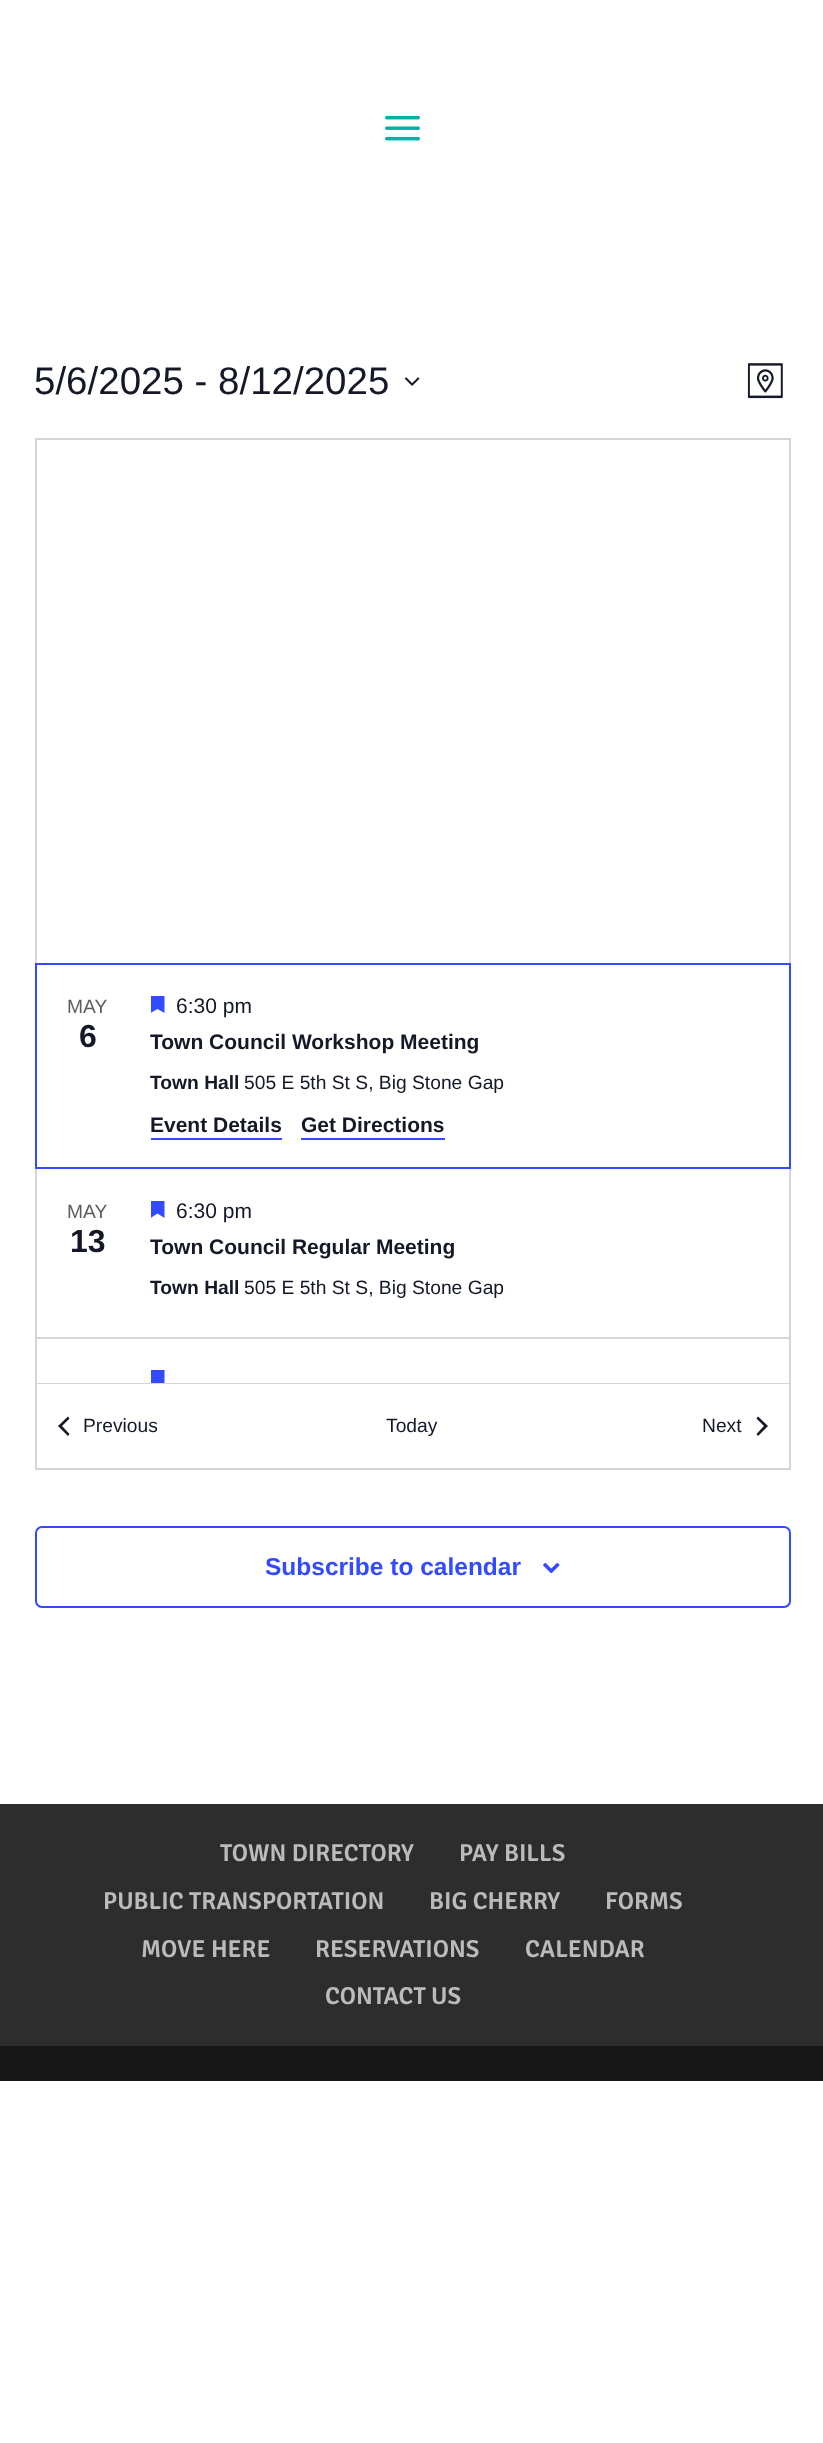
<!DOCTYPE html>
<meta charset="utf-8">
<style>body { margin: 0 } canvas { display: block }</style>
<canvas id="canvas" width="823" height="2443"></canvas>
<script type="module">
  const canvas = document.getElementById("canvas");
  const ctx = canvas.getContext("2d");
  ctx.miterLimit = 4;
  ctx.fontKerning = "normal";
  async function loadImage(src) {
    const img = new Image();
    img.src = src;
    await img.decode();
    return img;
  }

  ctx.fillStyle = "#ffffff";
  ctx.fillRect(0, 0, 823, 2443);
  ctx.drawImage(await loadImage("img1.png"), 385, 115, 35, 26);
  ctx.font = "38.5px Liberation Sans";
  ctx.fillStyle = "#141827";
  ctx.fillText("5/6/2025 - 8/12/2025", 34, 394);
  ctx.drawImage(await loadImage("img2.png"), 404, 377, 16, 9);
  ctx.drawImage(await loadImage("img3.png"), 747, 363, 36, 36);
  ctx.fillStyle = "#d5d5d5";
  ctx.fillRect(35, 438, 756, 2);
  ctx.fillRect(789, 438, 2, 525);
  ctx.fillRect(35, 438, 2, 525);
  ctx.strokeStyle = "#d5d5d5";
  ctx.lineWidth = 2;
  ctx.strokeRect(36, 1168, 754, 170);
  ctx.strokeStyle = "#334aff";
  ctx.strokeRect(36, 964, 754, 204);
  ctx.font = "19.25px Liberation Sans";
  ctx.fillStyle = "#5d5d5d";
  ctx.fillText("MAY", 67, 1013);
  ctx.font = "bold 32px Liberation Sans";
  ctx.fillStyle = "#141827";
  ctx.fillText("6", 79, 1047);
  ctx.save();
  ctx.beginPath();
  ctx.rect(151, 996, 14, 17);
  ctx.clip();
  ctx.fillStyle = "#334aff";
  ctx.beginPath();
  ctx.moveTo(150.5, 996);
  ctx.lineTo(164.5, 996);
  ctx.lineTo(164.5, 1013);
  ctx.lineTo(157.5, 1009);
  ctx.lineTo(150.5, 1013);
  ctx.closePath();
  ctx.fill("evenodd");
  ctx.restore();
  ctx.font = "21px Liberation Sans";
  ctx.fillText("6:30 pm", 176, 1013);
  ctx.font = "bold 21px Liberation Sans";
  ctx.fillText("Town Council Workshop Meeting", 150, 1049);
  ctx.font = "bold 19.25px Liberation Sans";
  ctx.fillText("Town Hall", 150, 1089);
  ctx.font = "19.25px Liberation Sans";
  ctx.fillText("505 E 5th St S, Big Stone Gap", 244, 1089);
  ctx.font = "bold 21px Liberation Sans";
  ctx.fillText("Event Details", 150, 1132);
  ctx.fillStyle = "#334aff";
  ctx.fillRect(151, 1138, 131, 2);
  ctx.fillStyle = "#141827";
  ctx.fillText("Get Directions", 301, 1132);
  ctx.fillStyle = "#334aff";
  ctx.fillRect(301, 1138, 144, 2);
  ctx.font = "19.25px Liberation Sans";
  ctx.fillStyle = "#5d5d5d";
  ctx.fillText("MAY", 67, 1218);
  ctx.font = "bold 32px Liberation Sans";
  ctx.fillStyle = "#141827";
  ctx.fillText("13", 70, 1252);
  ctx.save();
  ctx.beginPath();
  ctx.rect(151, 1201, 14, 17);
  ctx.clip();
  ctx.fillStyle = "#334aff";
  ctx.beginPath();
  ctx.moveTo(150.5, 1200.5);
  ctx.lineTo(164.5, 1200.5);
  ctx.lineTo(164.5, 1218);
  ctx.lineTo(157.5, 1213.5);
  ctx.lineTo(150.5, 1218);
  ctx.closePath();
  ctx.fill("evenodd");
  ctx.restore();
  ctx.font = "21px Liberation Sans";
  ctx.fillText("6:30 pm", 176, 1218);
  ctx.font = "bold 21px Liberation Sans";
  ctx.fillText("Town Council Regular Meeting", 150, 1254);
  ctx.font = "bold 19.25px Liberation Sans";
  ctx.fillText("Town Hall", 150, 1294);
  ctx.font = "19.25px Liberation Sans";
  ctx.fillText("505 E 5th St S, Big Stone Gap", 244, 1294);
  ctx.fillStyle = "#d5d5d5";
  ctx.fillRect(35, 1468, 756, 2);
  ctx.fillRect(35, 1384, 2, 86);
  ctx.fillStyle = "#141827";
  ctx.beginPath();
  ctx.moveTo(69.5, 1434);
  ctx.lineTo(68, 1436);
  ctx.lineTo(58, 1426);
  ctx.lineTo(68, 1416.5);
  ctx.lineTo(69.5, 1418.5);
  ctx.lineTo(62, 1426);
  ctx.closePath();
  ctx.fill();
  ctx.beginPath();
  ctx.moveTo(756.5, 1418.5);
  ctx.lineTo(758, 1416.5);
  ctx.lineTo(768, 1426);
  ctx.lineTo(758, 1436);
  ctx.lineTo(756.5, 1434);
  ctx.lineTo(764, 1426);
  ctx.closePath();
  ctx.fill();
  ctx.save();
  ctx.beginPath();
  ctx.rect(35, 963, 756, 421);
  ctx.clip();
  ctx.strokeStyle = "#d5d5d5";
  ctx.strokeRect(36, 1338, 754, 168);
  ctx.restore();
  ctx.save();
  ctx.beginPath();
  ctx.rect(151, 1370, 14, 14);
  ctx.clip();
  ctx.fillStyle = "#334aff";
  ctx.beginPath();
  ctx.moveTo(150.5, 1370);
  ctx.lineTo(164.5, 1370);
  ctx.lineTo(164.5, 1388);
  ctx.lineTo(157.5, 1383.5);
  ctx.lineTo(150.5, 1388);
  ctx.closePath();
  ctx.fill("evenodd");
  ctx.restore();
  ctx.fillStyle = "#d5d5d5";
  ctx.fillRect(35, 1383, 756, 1);
  ctx.fillStyle = "#141827";
  ctx.fillText("Previous", 83, 1432);
  ctx.fillText("Today", 386, 1432);
  ctx.fillText("Next", 702, 1432);
  ctx.fillStyle = "#d5d5d5";
  ctx.fillRect(789, 1384, 2, 86);
  ctx.beginPath();
  ctx.roundRect(36, 1527, 754, 80, 6);
  ctx.stroke();
  ctx.font = "bold 24.5px Liberation Sans";
  ctx.fillStyle = "#334aff";
  ctx.fillText("Subscribe to calendar", 265, 1575);
  ctx.drawImage(await loadImage("img4.png"), 543, 1563, 17, 10);
  ctx.fillStyle = "#2d2d2d";
  ctx.fillRect(0, 1804, 823, 242);
  ctx.font = "600 24.5px Signika";
  ctx.fillStyle = "#bbbbbb";
  ctx.fillText("TOWN DIRECTORY", 220, 1861);
  ctx.fillText("PAY BILLS", 459, 1861);
  ctx.fillText("PUBLIC TRANSPORTATION", 103, 1909);
  ctx.fillText("BIG CHERRY", 429, 1909);
  ctx.fillText("FORMS", 605, 1909);
  ctx.fillText("MOVE HERE", 141, 1957);
  ctx.fillText("RESERVATIONS", 315, 1957);
  ctx.fillText("CALENDAR", 525, 1957);
  ctx.fillText("CONTACT US", 325, 2004);
  ctx.fillStyle = "#171717";
  ctx.fillRect(0, 2046, 823, 35);
</script>
